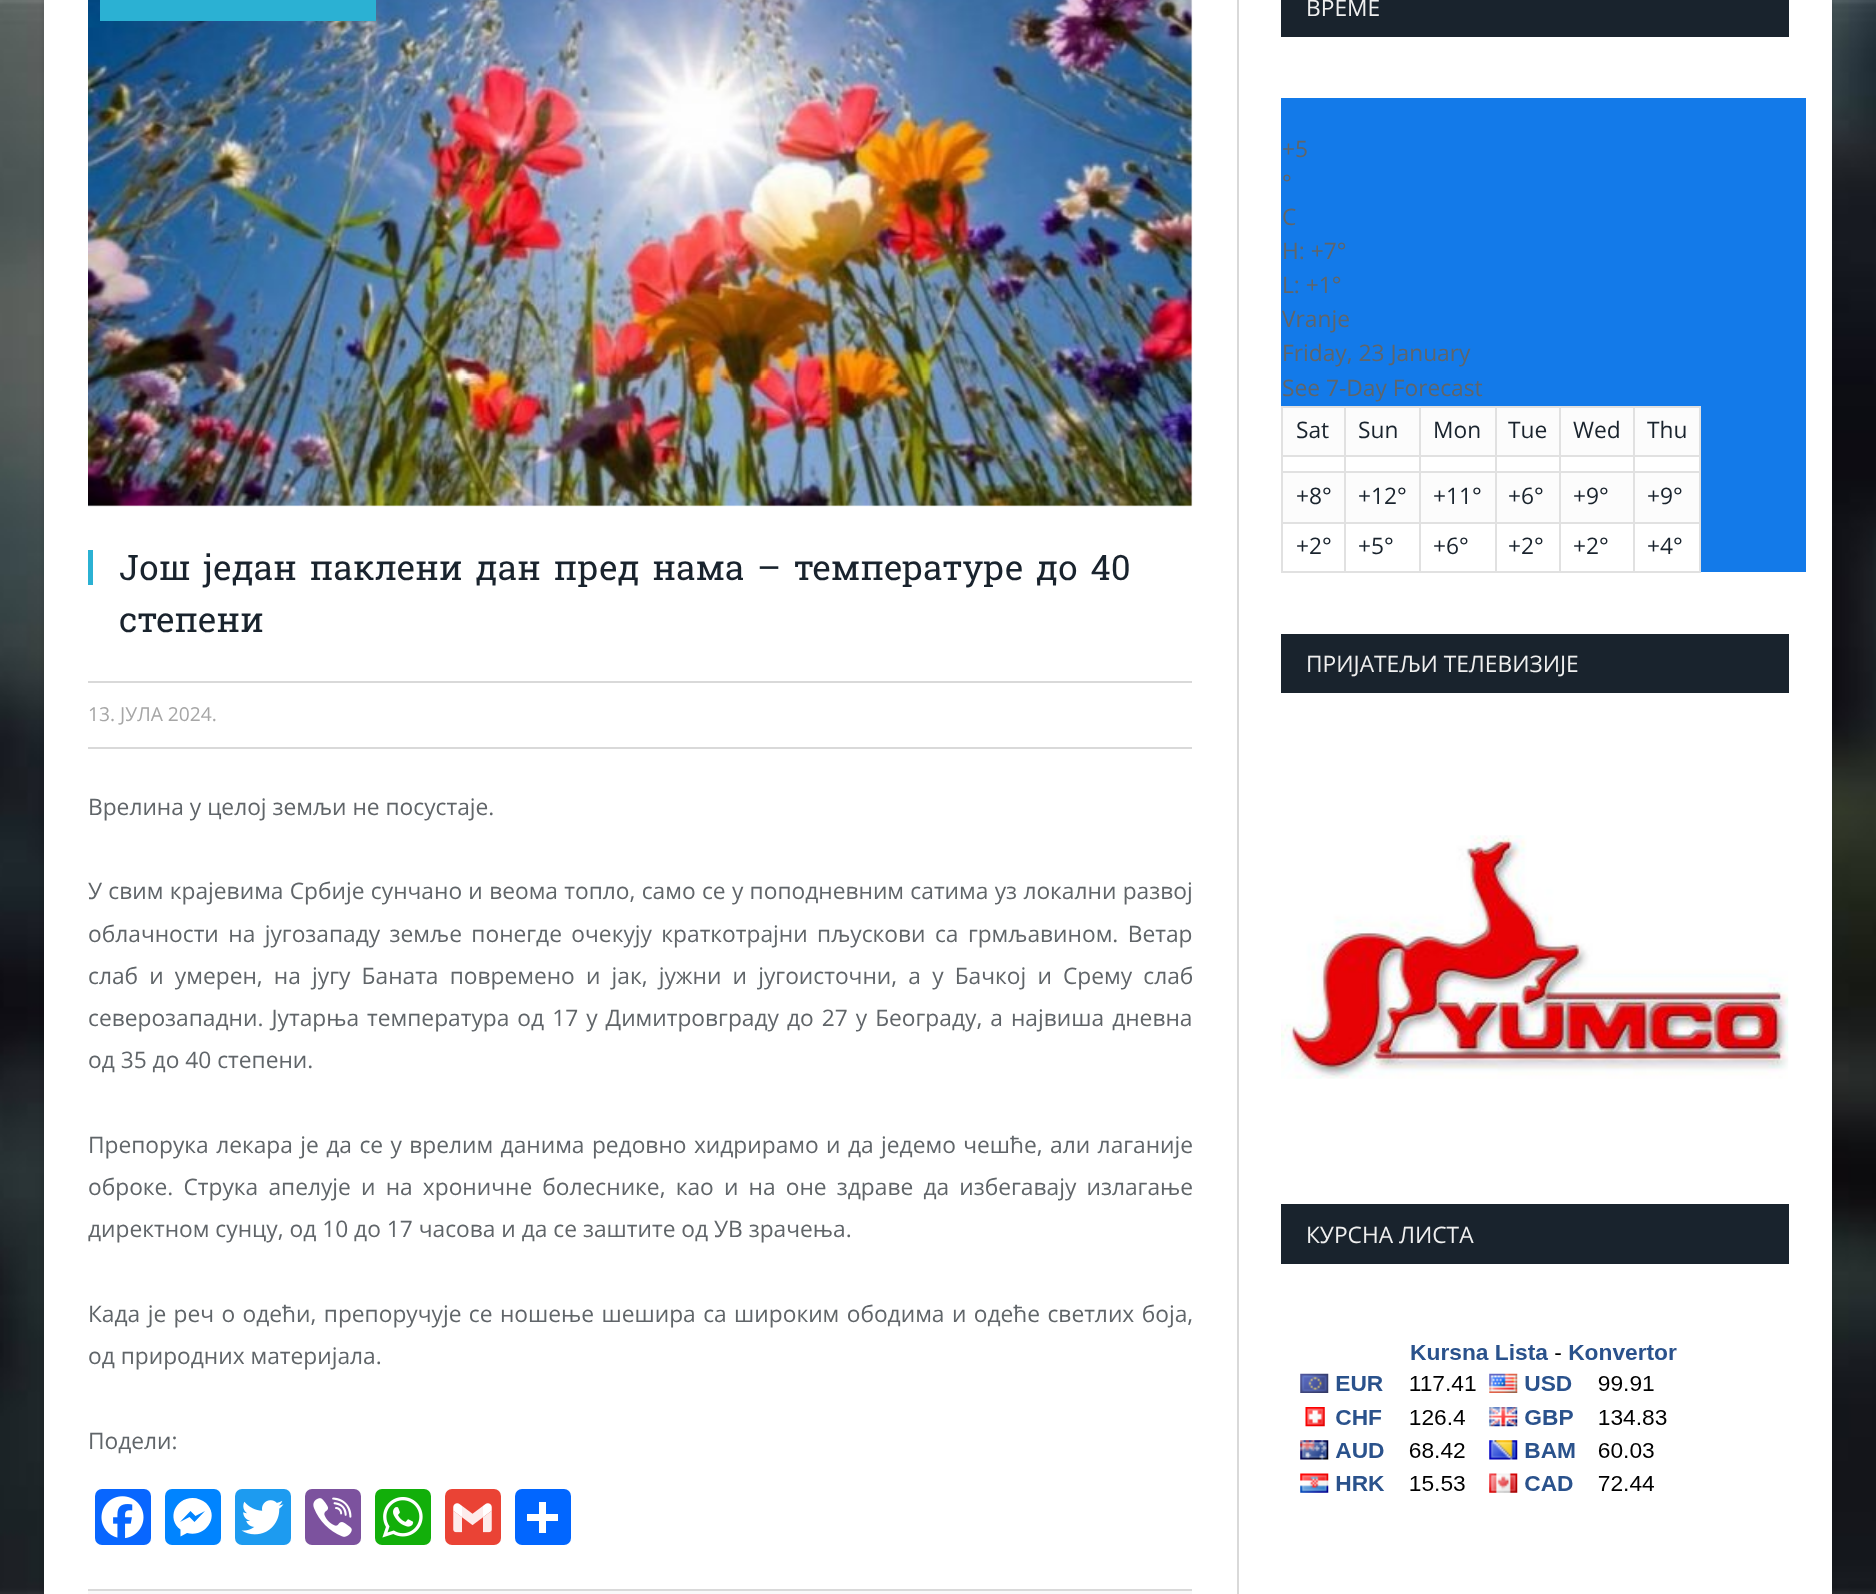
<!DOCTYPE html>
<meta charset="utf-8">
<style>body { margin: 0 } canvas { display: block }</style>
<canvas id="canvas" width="1876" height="1594"></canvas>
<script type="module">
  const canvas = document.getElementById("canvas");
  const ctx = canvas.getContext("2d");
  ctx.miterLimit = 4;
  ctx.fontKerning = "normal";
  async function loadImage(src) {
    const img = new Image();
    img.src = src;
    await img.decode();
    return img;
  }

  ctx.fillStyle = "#ffffff";
  ctx.fillRect(0, 0, 1876, 1594);
  ctx.drawImage(await loadImage("img1.png"), 0, 0, 1876, 1594);
  ctx.fillStyle = "rgba(0, 0, 0, 0.12)";
  ctx.filter = "blur(2.5px)";
  ctx.beginPath();
  ctx.rect(44, -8, 1788, 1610);
  ctx.fill();
  ctx.filter = "none";
  ctx.fillStyle = "#ffffff";
  ctx.fillRect(44, 0, 1788, 1594);
  ctx.drawImage(await loadImage("img2.png"), 88, 0, 1105, 507);
  ctx.fillStyle = "#2bb1d3";
  ctx.fillRect(88, 550, 5, 35);
  ctx.wordSpacing = "4px";
  ctx.font = "35px Roboto Slab";
  ctx.fillStyle = "#19232d";
  ctx.fillText("Још један паклени дан пред нама – температуре до 40", 119, 580);
  ctx.wordSpacing = "0px";
  ctx.fillText("степени", 119, 632);
  ctx.fillStyle = "#d9d9d9";
  ctx.fillRect(88, 681, 1104, 2);
  ctx.fillRect(88, 747, 1104, 2);
  ctx.fillStyle = "#2bb1d3";
  ctx.fillRect(100, 0, 276, 21);
  ctx.font = "19.25px Open Sans";
  ctx.fillStyle = "#a6a6a6";
  ctx.fillText("13. ЈУЛА 2024.", 88, 721);
  ctx.font = "22.75px Open Sans";
  ctx.fillStyle = "#606569";
  ctx.fillText("Врелина у целој земљи не посустаје.", 88, 815);
  ctx.wordSpacing = "0.4px";
  ctx.fillText("У свим крајевима Србије сунчано и веома топло, само се у поподневним сатима уз локални развој", 88, 899);
  ctx.wordSpacing = "3.5px";
  ctx.fillText("облачности на југозападу земље понегде очекују краткотрајни пљускови са грмљавином. Ветар", 88, 942);
  ctx.wordSpacing = "5.25px";
  ctx.fillText("слаб и умерен, на југу Баната повремено и јак, јужни и југоисточни, а у Бачкој и Срему слаб", 88, 984);
  ctx.wordSpacing = "2.1px";
  ctx.fillText("северозападни. Јутарња температура од 17 у Димитровграду до 27 у Београду, а највиша дневна", 88, 1026);
  ctx.wordSpacing = "0px";
  ctx.fillText("од 35 до 40 степени.", 88, 1068);
  ctx.wordSpacing = "1.5px";
  ctx.fillText("Препорука лекара је да се у врелим данима редовно хидрирамо и да једемо чешће, али лаганије", 88, 1153);
  ctx.wordSpacing = "4.25px";
  ctx.fillText("оброке. Струка апелује и на хроничне болеснике, као и на оне здраве да избегавају излагање", 88, 1195);
  ctx.wordSpacing = "0px";
  ctx.fillText("директном сунцу, од 10 до 17 часова и да се заштите од УВ зрачења.", 88, 1237);
  ctx.wordSpacing = "1.5px";
  ctx.fillText("Када је реч о одећи, препоручује се ношење шешира са широким ободима и одеће светлих боја,", 88, 1322);
  ctx.wordSpacing = "0px";
  ctx.fillText("од природних материјала.", 88, 1364);
  ctx.fillText("Подели:", 88, 1449);
  ctx.fillStyle = "#0866ff";
  ctx.beginPath();
  ctx.roundRect(95, 1489, 56, 56, 7);
  ctx.fill();
  ctx.drawImage(await loadImage("img3.png"), 101, 1496, 43, 43);
  ctx.fillStyle = "#0084ff";
  ctx.beginPath();
  ctx.roundRect(165, 1489, 56, 56, 7);
  ctx.fill();
  ctx.fillStyle = "#ffffff";
  ctx.beginPath();
  ctx.moveTo(192.5, 1498);
  ctx.bezierCurveTo(175, 1498, 166.5, 1519, 180.5, 1529.5);
  ctx.lineTo(180.5, 1536.5);
  ctx.lineTo(187, 1533);
  ctx.bezierCurveTo(205, 1538, 220.5, 1517, 206, 1503);
  ctx.bezierCurveTo(202.5, 1500, 197.5, 1498, 192.5, 1498);
  ctx.moveTo(194.5, 1522);
  ctx.lineTo(189.5, 1517);
  ctx.lineTo(180, 1522);
  ctx.lineTo(190.5, 1511);
  ctx.lineTo(195.5, 1516);
  ctx.lineTo(205, 1511);
  ctx.closePath();
  ctx.fill();
  ctx.fillStyle = "#1d9bf0";
  ctx.beginPath();
  ctx.roundRect(235, 1489, 56, 56, 7);
  ctx.fill();
  ctx.drawImage(await loadImage("img4.png"), 241, 1500, 43, 35);
  ctx.fillStyle = "#7c529e";
  ctx.beginPath();
  ctx.roundRect(305, 1489, 56, 56, 7);
  ctx.fill();
  ctx.drawImage(await loadImage("img5.png"), 313, 1497, 39, 40);
  ctx.fillStyle = "#12af0a";
  ctx.beginPath();
  ctx.roundRect(375, 1489, 56, 56, 7);
  ctx.fill();
  ctx.drawImage(await loadImage("img6.png"), 382, 1497, 41, 41);
  ctx.fillStyle = "#ea4335";
  ctx.beginPath();
  ctx.roundRect(445, 1489, 56, 56, 7);
  ctx.fill();
  ctx.drawImage(await loadImage("img7.png"), 453, 1503, 39, 30);
  ctx.fillStyle = "#0166ff";
  ctx.beginPath();
  ctx.roundRect(515, 1489, 56, 56, 7);
  ctx.fill();
  ctx.fillStyle = "#ffffff";
  ctx.fillRect(539, 1502, 7, 31);
  ctx.fillRect(527, 1514, 31, 7);
  ctx.fillStyle = "#f9f9f9";
  ctx.fillRect(88, 1591, 1104, 3);
  ctx.fillStyle = "#d9d9d9";
  ctx.fillRect(88, 1589, 1104, 2);
  ctx.fillRect(1237, 0, 2, 1594);
  ctx.fillStyle = "#19232d";
  ctx.fillRect(1281, 0, 508, 37);
  ctx.fillStyle = "#efefef";
  ctx.fillText("ВРЕМЕ", 1306, 16);
  ctx.fillStyle = "#137ae9";
  ctx.fillRect(1281, 98, 525, 474);
  ctx.fillStyle = "#606569";
  ctx.fillText("+5", 1282, 157);
  ctx.fillText("°", 1282, 191);
  ctx.fillText("C", 1282, 225);
  ctx.fillText("H: +7°", 1282, 259);
  ctx.fillText("L: +1°", 1282, 293);
  ctx.fillText("Vranje", 1282, 327);
  ctx.fillText("Friday, 23 January", 1282, 361);
  ctx.fillText("See 7-Day Forecast", 1282, 396);
  ctx.fillStyle = "#fcfcfc";
  ctx.fillRect(1283, 408, 61, 47);
  ctx.fillStyle = "#e1e1e1";
  ctx.fillRect(1633, 406, 68, 2);
  ctx.fillRect(1633, 455, 68, 2);
  ctx.fillRect(1633, 471, 68, 2);
  ctx.fillRect(1633, 522, 68, 2);
  ctx.fillRect(1699, 522, 2, 50);
  ctx.fillRect(1633, 571, 68, 2);
  ctx.fillRect(1633, 522, 2, 50);
  ctx.fillRect(1559, 522, 76, 2);
  ctx.fillRect(1633, 471, 2, 52);
  ctx.fillRect(1559, 471, 76, 2);
  ctx.fillRect(1633, 455, 2, 18);
  ctx.fillRect(1559, 455, 76, 2);
  ctx.fillRect(1633, 406, 2, 51);
  ctx.fillRect(1559, 406, 76, 2);
  ctx.fillRect(1559, 571, 76, 2);
  ctx.fillRect(1559, 522, 2, 50);
  ctx.fillRect(1495, 522, 66, 2);
  ctx.fillRect(1559, 471, 2, 52);
  ctx.fillRect(1495, 471, 66, 2);
  ctx.fillRect(1559, 455, 2, 18);
  ctx.fillRect(1495, 455, 66, 2);
  ctx.fillRect(1559, 406, 2, 51);
  ctx.fillRect(1495, 406, 66, 2);
  ctx.fillRect(1495, 571, 66, 2);
  ctx.fillRect(1495, 522, 2, 50);
  ctx.fillRect(1419, 522, 77, 2);
  ctx.fillRect(1495, 471, 2, 52);
  ctx.fillRect(1419, 471, 77, 2);
  ctx.fillRect(1495, 455, 2, 18);
  ctx.fillRect(1419, 455, 77, 2);
  ctx.fillRect(1495, 406, 2, 51);
  ctx.fillRect(1419, 406, 77, 2);
  ctx.fillRect(1419, 571, 77, 2);
  ctx.fillRect(1419, 522, 2, 50);
  ctx.fillRect(1344, 522, 77, 2);
  ctx.fillRect(1419, 471, 2, 52);
  ctx.fillRect(1344, 471, 77, 2);
  ctx.fillRect(1419, 455, 2, 18);
  ctx.fillRect(1344, 455, 77, 2);
  ctx.fillRect(1419, 406, 2, 51);
  ctx.fillRect(1344, 406, 77, 2);
  ctx.fillRect(1344, 571, 77, 2);
  ctx.fillRect(1344, 522, 2, 50);
  ctx.fillRect(1281, 522, 65, 2);
  ctx.fillRect(1344, 471, 2, 52);
  ctx.fillRect(1281, 471, 65, 2);
  ctx.fillRect(1344, 455, 2, 18);
  ctx.fillRect(1281, 455, 65, 2);
  ctx.fillRect(1344, 406, 2, 51);
  ctx.fillRect(1281, 406, 65, 2);
  ctx.fillRect(1281, 571, 65, 2);
  ctx.fillRect(1281, 522, 2, 50);
  ctx.fillRect(1281, 471, 2, 52);
  ctx.fillRect(1281, 455, 2, 18);
  ctx.fillRect(1281, 406, 2, 51);
  ctx.fillStyle = "#19232d";
  ctx.fillText("Sat", 1296, 438);
  ctx.fillStyle = "#fcfcfc";
  ctx.fillRect(1346, 408, 73, 47);
  ctx.fillStyle = "#19232d";
  ctx.fillText("Sun", 1358, 438);
  ctx.fillStyle = "#fcfcfc";
  ctx.fillRect(1421, 408, 74, 47);
  ctx.fillStyle = "#19232d";
  ctx.fillText("Mon", 1433, 438);
  ctx.fillStyle = "#fcfcfc";
  ctx.fillRect(1497, 408, 62, 47);
  ctx.fillStyle = "#19232d";
  ctx.fillText("Tue", 1508, 438);
  ctx.fillStyle = "#fcfcfc";
  ctx.fillRect(1561, 408, 72, 47);
  ctx.fillStyle = "#19232d";
  ctx.fillText("Wed", 1573, 438);
  ctx.fillStyle = "#fcfcfc";
  ctx.fillRect(1635, 408, 64, 47);
  ctx.fillStyle = "#e1e1e1";
  ctx.fillRect(1699, 471, 2, 52);
  ctx.fillRect(1699, 455, 2, 18);
  ctx.fillRect(1699, 406, 2, 51);
  ctx.fillStyle = "#19232d";
  ctx.fillText("Thu", 1647, 438);
  ctx.fillStyle = "#ffffff";
  ctx.fillRect(1283, 457, 61, 14);
  ctx.fillRect(1346, 457, 73, 14);
  ctx.fillRect(1421, 457, 74, 14);
  ctx.fillRect(1497, 457, 62, 14);
  ctx.fillRect(1561, 457, 72, 14);
  ctx.fillRect(1635, 457, 64, 14);
  ctx.fillStyle = "#fcfcfc";
  ctx.fillRect(1283, 473, 61, 49);
  ctx.fillStyle = "#19232d";
  ctx.fillText("+8°", 1296, 504);
  ctx.fillStyle = "#fcfcfc";
  ctx.fillRect(1346, 473, 73, 49);
  ctx.fillStyle = "#19232d";
  ctx.fillText("+12°", 1358, 504);
  ctx.fillStyle = "#fcfcfc";
  ctx.fillRect(1421, 473, 74, 49);
  ctx.fillStyle = "#19232d";
  ctx.fillText("+11°", 1433, 504);
  ctx.fillStyle = "#fcfcfc";
  ctx.fillRect(1497, 473, 62, 49);
  ctx.fillStyle = "#19232d";
  ctx.fillText("+6°", 1508, 504);
  ctx.fillStyle = "#fcfcfc";
  ctx.fillRect(1561, 473, 72, 49);
  ctx.fillStyle = "#19232d";
  ctx.fillText("+9°", 1573, 504);
  ctx.fillStyle = "#fcfcfc";
  ctx.fillRect(1635, 473, 64, 49);
  ctx.fillStyle = "#19232d";
  ctx.fillText("+9°", 1647, 504);
  ctx.fillStyle = "#ffffff";
  ctx.fillRect(1283, 524, 61, 47);
  ctx.fillStyle = "#19232d";
  ctx.fillText("+2°", 1296, 554);
  ctx.fillStyle = "#ffffff";
  ctx.fillRect(1346, 524, 73, 47);
  ctx.fillStyle = "#19232d";
  ctx.fillText("+5°", 1358, 554);
  ctx.fillStyle = "#ffffff";
  ctx.fillRect(1421, 524, 74, 47);
  ctx.fillStyle = "#19232d";
  ctx.fillText("+6°", 1433, 554);
  ctx.fillStyle = "#ffffff";
  ctx.fillRect(1497, 524, 62, 47);
  ctx.fillStyle = "#19232d";
  ctx.fillText("+2°", 1508, 554);
  ctx.fillStyle = "#ffffff";
  ctx.fillRect(1561, 524, 72, 47);
  ctx.fillStyle = "#19232d";
  ctx.fillText("+2°", 1573, 554);
  ctx.fillStyle = "#ffffff";
  ctx.fillRect(1635, 524, 64, 47);
  ctx.fillStyle = "#19232d";
  ctx.fillText("+4°", 1647, 554);
  ctx.fillRect(1281, 634, 508, 59);
  ctx.fillStyle = "#efefef";
  ctx.fillText("ПРИЈАТЕЉИ ТЕЛЕВИЗИЈЕ", 1306, 672);
  ctx.drawImage(await loadImage("img8.png"), 1281, 835, 508, 244);
  ctx.fillStyle = "#19232d";
  ctx.fillRect(1281, 1204, 508, 60);
  ctx.fillStyle = "#efefef";
  ctx.fillText("КУРСНА ЛИСТА", 1306, 1243);
  ctx.drawImage(await loadImage("img9.png"), 1300, 1344, 377, 149);
</script>
